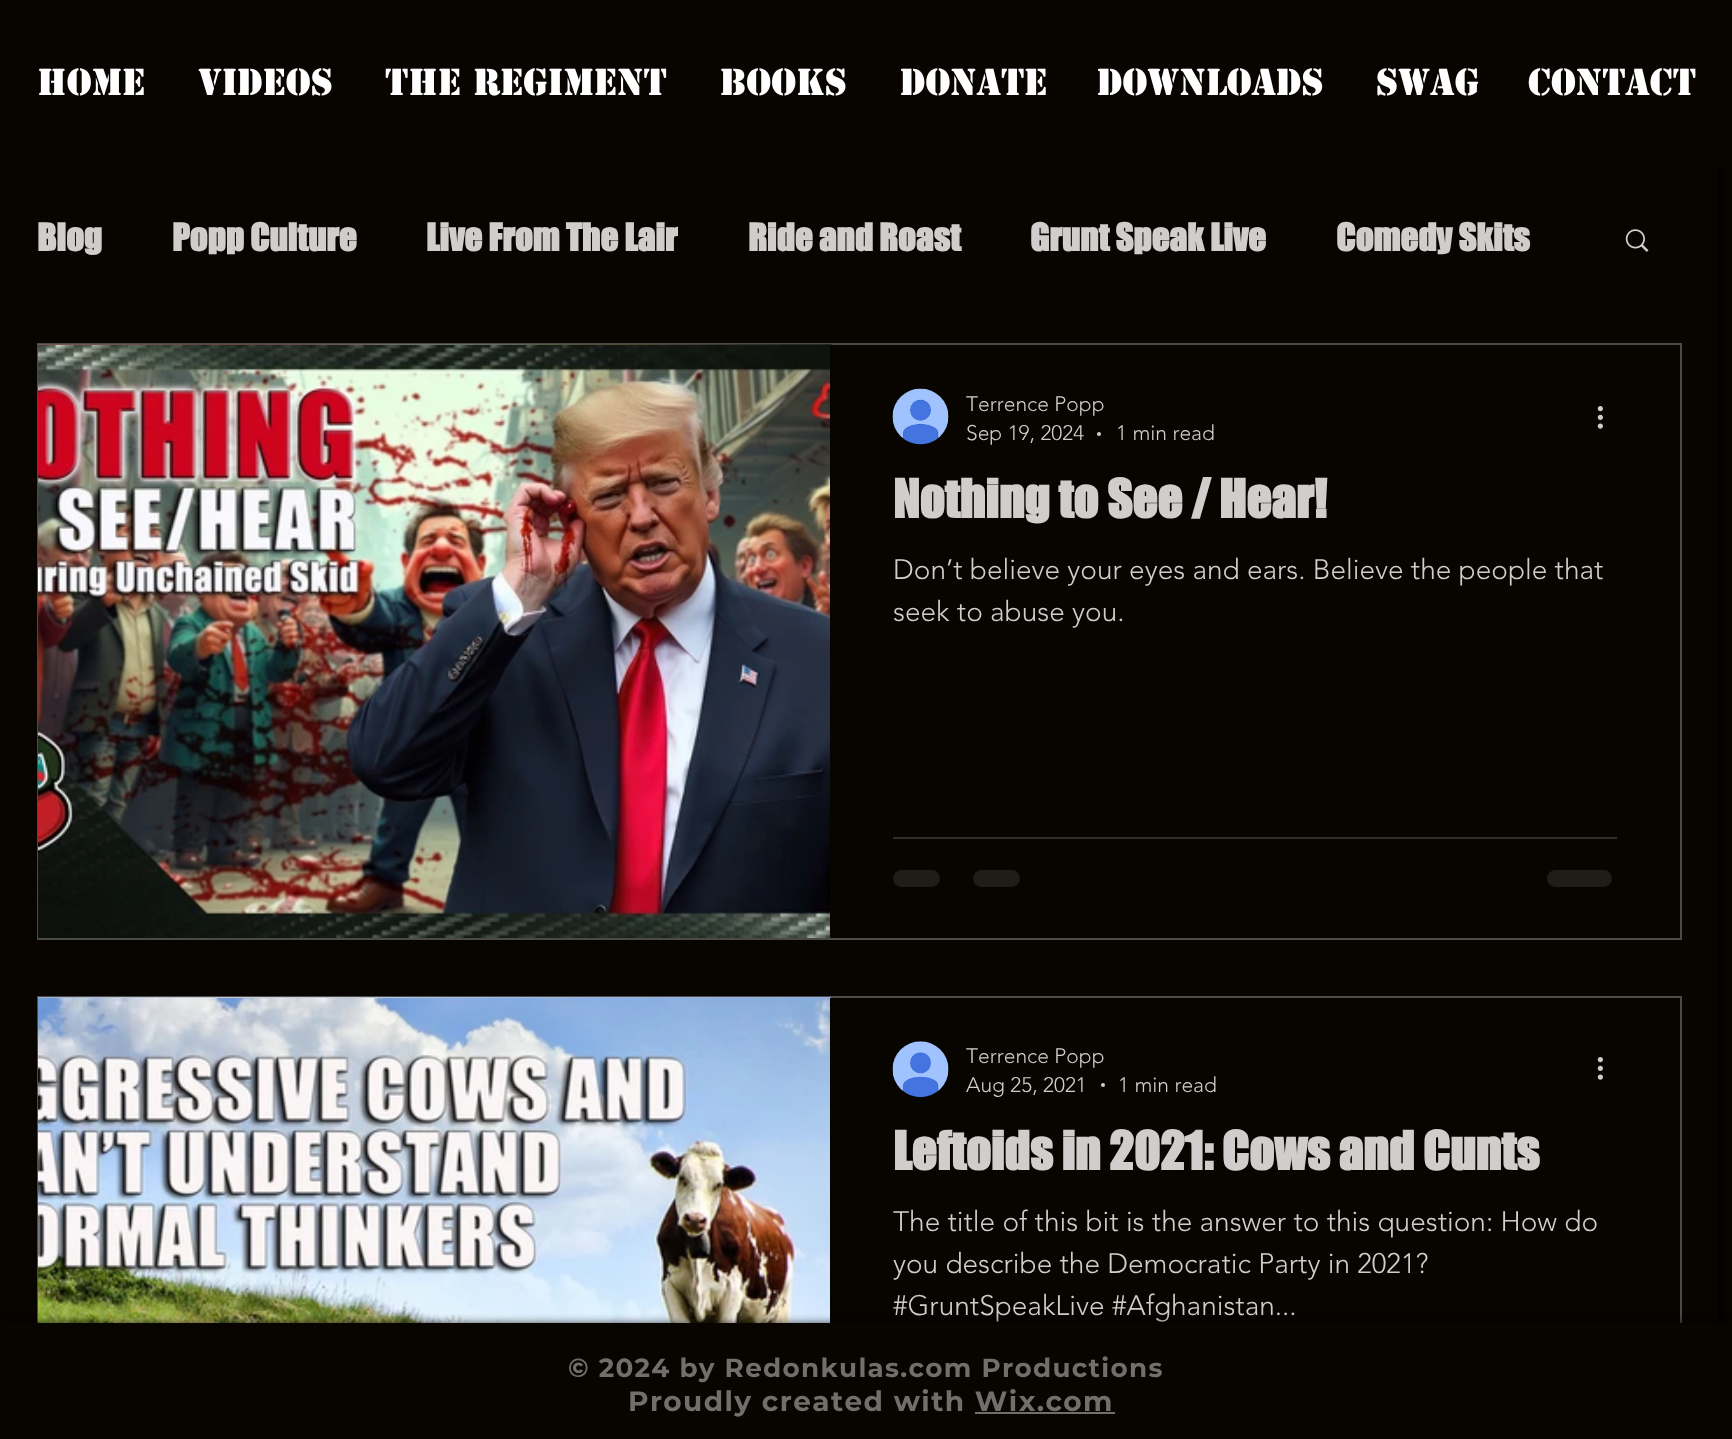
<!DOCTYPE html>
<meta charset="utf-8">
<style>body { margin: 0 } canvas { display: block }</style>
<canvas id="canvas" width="1732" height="1439"></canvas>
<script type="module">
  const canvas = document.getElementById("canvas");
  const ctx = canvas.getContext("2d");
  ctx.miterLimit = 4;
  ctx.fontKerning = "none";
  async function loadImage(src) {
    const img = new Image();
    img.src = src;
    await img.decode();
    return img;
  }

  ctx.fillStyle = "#080400";
  ctx.fillRect(0, 0, 1732, 1439);
  ctx.font = "bold 35px 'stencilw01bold'";
  ctx.fillStyle = "#ffffff";
  ctx.fillText("Home", 37, 95);
  ctx.fillText("Videos", 198, 95);
  ctx.fillText("The Regiment", 385, 95);
  ctx.fillText("Books", 720, 95);
  ctx.fillText("Donate", 900, 95);
  ctx.fillText("Downloads", 1097, 95);
  ctx.fillText("Swag", 1376, 95);
  ctx.fillText("Contact", 1528, 95);
  ctx.font = "bold 35px 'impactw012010'";
  ctx.fillStyle = "#d0cecc";
  ctx.fillText("Blog", 37, 251);
  ctx.fillText("Popp Culture", 172, 251);
  ctx.fillText("Live From The Lair", 426, 251);
  ctx.fillText("Ride and Roast", 748, 251);
  ctx.fillText("Grunt Speak Live", 1030, 251);
  ctx.fillText("Comedy Skits", 1336, 251);
  ctx.drawImage(await loadImage("img1.png"), 1625, 229, 24, 23);
  ctx.strokeStyle = "#4b4a47";
  ctx.lineWidth = 2;
  ctx.strokeRect(38, 344, 1643, 595);
  ctx.drawImage(await loadImage("img2.png"), 38, 344, 794, 1);
  ctx.drawImage(await loadImage("img3.png"), 38, 345, 792, 593);
  ctx.drawImage(await loadImage("img4.png"), 892, 388, 57, 57);
  ctx.font = "300 21px 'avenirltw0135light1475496'";
  ctx.fillText("Terrence Popp", 966, 411);
  ctx.fillText("Sep 19, 2024", 966, 440);
  ctx.beginPath();
  ctx.arc(1099, 434, 2, 0, Math.PI * 2);
  ctx.fill();
  ctx.fillText("1 min read", 1116, 440);
  ctx.drawImage(await loadImage("img5.png"), 1597, 406, 6, 23);
  ctx.font = "bold 49px 'impactw012010'";
  ctx.fillText("Nothing to See / Hear!", 893, 518);
  ctx.font = "300 28px 'avenirltw0135light1475496'";
  ctx.fillText("Don’t believe your eyes and ears. Believe the people that", 893, 579);
  ctx.fillText("seek to abuse you.", 893, 621);
  ctx.fillStyle = "#302c29";
  ctx.fillRect(893, 837, 724, 2);
  ctx.fillStyle = "#201c18";
  ctx.beginPath();
  ctx.roundRect(893, 870, 47, 17, 8.5);
  ctx.fill();
  ctx.beginPath();
  ctx.roundRect(973, 870, 47, 17, 8.5);
  ctx.fill();
  ctx.beginPath();
  ctx.roundRect(1547, 870, 65, 17, 8.5);
  ctx.fill();
  ctx.strokeRect(38, 997, 1643, 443);
  ctx.drawImage(await loadImage("img6.png"), 38, 997, 793, 1);
  ctx.drawImage(await loadImage("img7.png"), 38, 998, 792, 325);
  ctx.drawImage(await loadImage("img8.png"), 892, 1041, 57, 57);
  ctx.font = "300 21px 'avenirltw0135light1475496'";
  ctx.fillStyle = "#d0cecc";
  ctx.fillText("Terrence Popp", 966, 1063);
  ctx.fillText("Aug 25, 2021", 966, 1092);
  ctx.beginPath();
  ctx.arc(1103, 1085, 2, 0, Math.PI * 2);
  ctx.fill();
  ctx.fillText("1 min read", 1118, 1092);
  ctx.drawImage(await loadImage("img5.png"), 1597, 1057, 6, 23);
  ctx.font = "bold 49px 'impactw012010'";
  ctx.fillText("Leftoids in 2021: Cows and Cunts", 893, 1170);
  ctx.font = "300 28px 'avenirltw0135light1475496'";
  ctx.fillText("The title of this bit is the answer to this question: How do", 893, 1231);
  ctx.fillText("you describe the Democratic Party in 2021?", 893, 1273);
  ctx.fillText("#GruntSpeakLive #Afghanistan...", 893, 1315);
  ctx.fillStyle = "#030200";
  ctx.fillRect(1717, 168, 7, 1155);
  ctx.fillStyle = "rgba(0, 0, 0, 0.7)";
  ctx.filter = "blur(4.5px)";
  ctx.beginPath();
  ctx.rect(0, 1323, 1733, 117);
  ctx.fill();
  ctx.filter = "none";
  ctx.fillStyle = "#080400";
  ctx.fillRect(0, 1323, 1732, 116);
  ctx.letterSpacing = "1.3px";
  ctx.font = "bold 26.25px Montserrat";
  ctx.fillStyle = "#716f6b";
  ctx.fillText("© 2024 by Redonkulas.com Productions", 568, 1377);
  ctx.letterSpacing = "1.4px";
  ctx.font = "bold 28px Montserrat";
  ctx.fillText("Proudly created with Wix.com", 628, 1411);
  ctx.fillRect(975, 1412, 140, 2);
</script>
